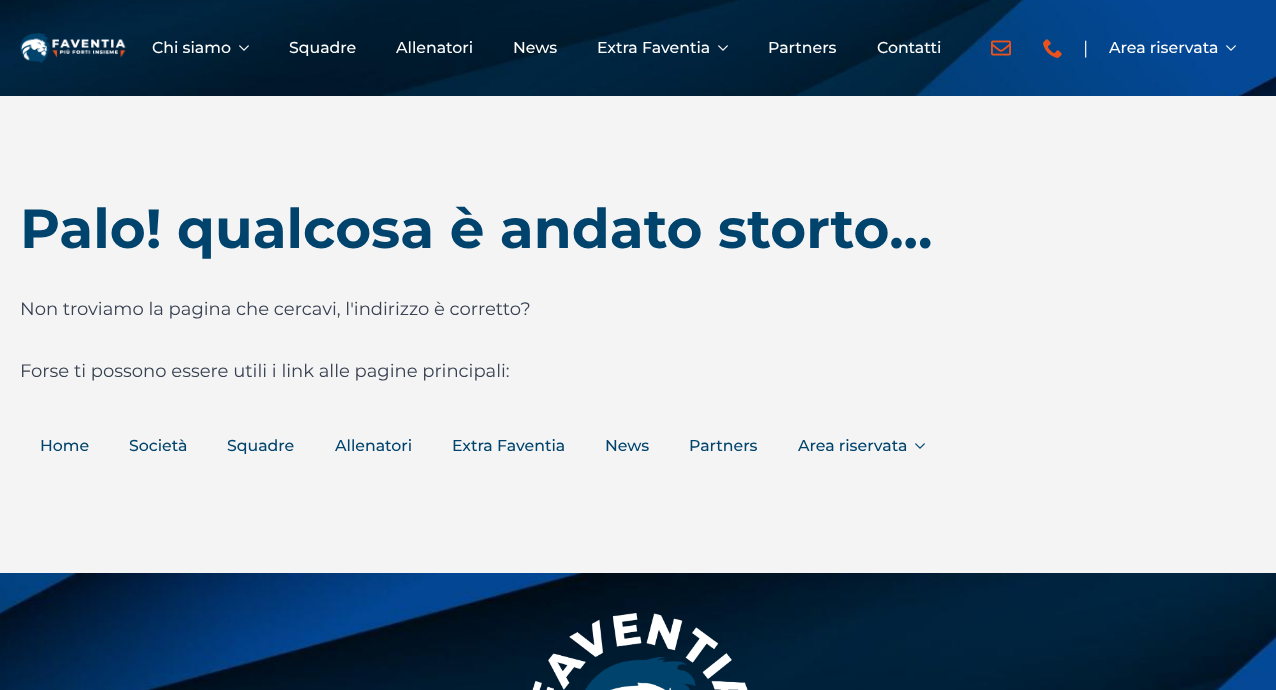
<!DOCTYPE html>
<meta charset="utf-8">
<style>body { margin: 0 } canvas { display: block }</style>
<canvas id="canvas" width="1276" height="690"></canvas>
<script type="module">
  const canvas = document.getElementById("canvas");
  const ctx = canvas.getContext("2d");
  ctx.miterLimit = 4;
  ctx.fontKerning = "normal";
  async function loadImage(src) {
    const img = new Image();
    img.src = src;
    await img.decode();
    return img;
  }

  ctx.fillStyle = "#f4f4f4";
  ctx.fillRect(0, 0, 1276, 690);
  ctx.drawImage(await loadImage("img1.png"), 0, 0, 1276, 96);
  ctx.drawImage(await loadImage("img2.png"), 20, 33, 106, 30);
  ctx.font = "500 15.75px Montserrat";
  ctx.fillStyle = "#ffffff";
  ctx.fillText("Chi siamo", 152, 53);
  ctx.drawImage(await loadImage("img3.png"), 239, 45, 10, 6);
  ctx.fillText("Squadre", 289, 53);
  ctx.fillText("Allenatori", 396, 53);
  ctx.fillText("News", 513, 53);
  ctx.fillText("Extra Faventia", 597, 53);
  ctx.drawImage(await loadImage("img4.png"), 718, 45, 10, 6);
  ctx.fillText("Partners", 768, 53);
  ctx.fillText("Contatti", 877, 53);
  ctx.drawImage(await loadImage("img5.png"), 991, 40, 20, 16);
  ctx.drawImage(await loadImage("img6.png"), 1043, 39, 19, 19);
  ctx.font = "18px Montserrat";
  ctx.fillStyle = "#f4f4f4";
  ctx.fillText("|", 1083, 54);
  ctx.font = "500 15.75px Montserrat";
  ctx.fillStyle = "#ffffff";
  ctx.fillText("Area riservata", 1109, 53);
  ctx.drawImage(await loadImage("img7.png"), 1226, 45, 10, 6);
  ctx.font = "bold 54.9px Montserrat";
  ctx.fillStyle = "#00436c";
  ctx.fillText("Palo! qualcosa è andato storto...", 20, 248);
  ctx.font = "18px Montserrat";
  ctx.fillStyle = "#374151";
  ctx.fillText("Non troviamo la pagina che cercavi, l'indirizzo è corretto?", 20, 315);
  ctx.fillText("Forse ti possono essere utili i link alle pagine principali:", 20, 377);
  ctx.font = "500 15.75px Montserrat";
  ctx.fillStyle = "#00436c";
  ctx.fillText("Home", 40, 451);
  ctx.fillText("Società", 129, 451);
  ctx.fillText("Squadre", 227, 451);
  ctx.fillText("Allenatori", 335, 451);
  ctx.fillText("Extra Faventia", 452, 451);
  ctx.fillText("News", 605, 451);
  ctx.fillText("Partners", 689, 451);
  ctx.fillText("Area riservata", 798, 451);
  ctx.drawImage(await loadImage("img8.png"), 915, 443, 10, 6);
  ctx.drawImage(await loadImage("img9.png"), 0, 573, 1276, 117);
  ctx.drawImage(await loadImage("img10.png"), 532, 613, 216, 77);
</script>
